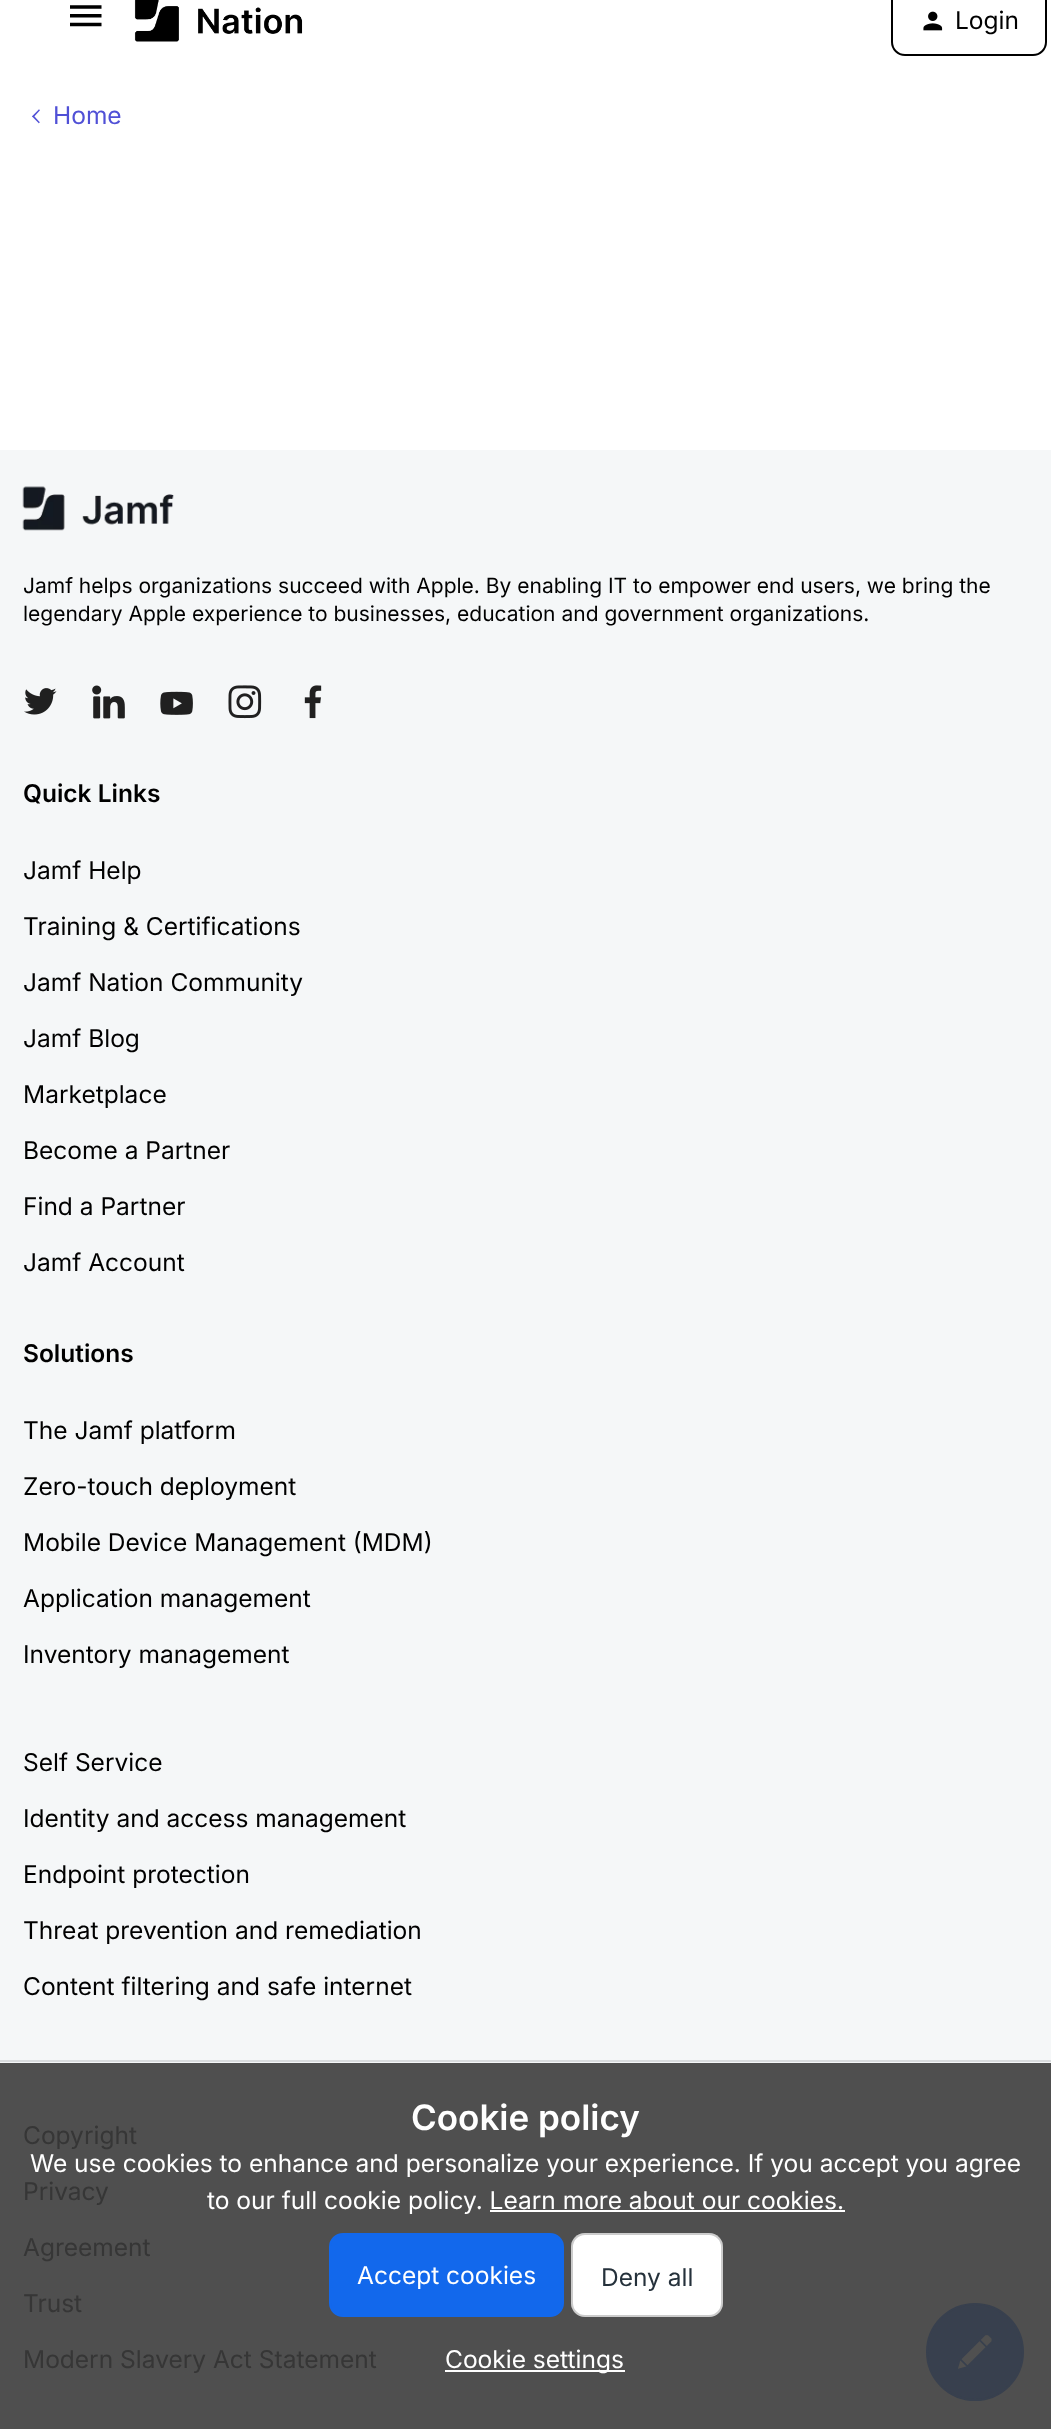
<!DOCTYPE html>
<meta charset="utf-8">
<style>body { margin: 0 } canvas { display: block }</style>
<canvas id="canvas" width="1051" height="2429"></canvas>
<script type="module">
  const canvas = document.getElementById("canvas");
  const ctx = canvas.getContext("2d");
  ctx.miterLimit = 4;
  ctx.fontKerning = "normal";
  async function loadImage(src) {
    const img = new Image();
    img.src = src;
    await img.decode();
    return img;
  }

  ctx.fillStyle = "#ffffff";
  ctx.fillRect(0, 0, 1051, 2429);
  ctx.drawImage(await loadImage("img1.png"), 70, 5, 32, 22);
  ctx.drawImage(await loadImage("img2.png"), 134, 0, 169, 42);
  ctx.beginPath();
  ctx.roundRect(892, -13, 154, 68, 13);
  ctx.strokeStyle = "#000000";
  ctx.lineWidth = 2;
  ctx.stroke();
  ctx.drawImage(await loadImage("img3.png"), 923, 11, 20, 20);
  ctx.font = "24.5px Inter";
  ctx.fillStyle = "#000000";
  ctx.fillText("Login", 955, 29);
  ctx.drawImage(await loadImage("img4.png"), 32, 109, 8, 15);
  ctx.fillStyle = "#5050d6";
  ctx.fillText("Home", 53, 124);
  ctx.fillStyle = "#f5f7f8";
  ctx.fillRect(0, 450, 1051, 1613);
  ctx.fillStyle = "#4f4f4f";
  ctx.fillRect(0, 2063, 1051, 366);
  ctx.drawImage(await loadImage("img5.png"), 22, 486, 152, 45);
  ctx.font = "21px Inter";
  ctx.fillStyle = "#000000";
  ctx.fillText("Jamf helps organizations succeed with Apple. By enabling IT to empower end users, we bring the", 23, 593);
  ctx.fillText("legendary Apple experience to businesses, education and government organizations.", 23, 621);
  ctx.drawImage(await loadImage("img6.png"), 24, 688, 33, 27);
  ctx.drawImage(await loadImage("img7.png"), 92, 685, 33, 34);
  ctx.drawImage(await loadImage("img8.png"), 160, 691, 33, 24);
  ctx.drawImage(await loadImage("img9.png"), 228, 685, 34, 34);
  ctx.drawImage(await loadImage("img10.png"), 304, 685, 18, 34);
  ctx.font = "600 24.5px Inter";
  ctx.fillText("Quick Links", 23, 802);
  ctx.font = "24.5px Inter";
  ctx.fillText("Jamf Help", 23, 879);
  ctx.fillText("Training & Certifications", 23, 935);
  ctx.fillText("Jamf Nation Community", 23, 991);
  ctx.fillText("Jamf Blog", 23, 1047);
  ctx.fillText("Marketplace", 23, 1103);
  ctx.fillText("Become a Partner", 23, 1159);
  ctx.fillText("Find a Partner", 23, 1215);
  ctx.fillText("Jamf Account", 23, 1271);
  ctx.font = "600 24.5px Inter";
  ctx.fillText("Solutions", 23, 1362);
  ctx.font = "24.5px Inter";
  ctx.fillText("The Jamf platform", 23, 1439);
  ctx.fillText("Zero-touch deployment", 23, 1495);
  ctx.fillText("Mobile Device Management (MDM)", 23, 1551);
  ctx.fillText("Application management", 23, 1607);
  ctx.fillText("Inventory management", 23, 1663);
  ctx.fillText("Self Service", 23, 1771);
  ctx.fillText("Identity and access management", 23, 1827);
  ctx.fillText("Endpoint protection", 23, 1883);
  ctx.fillText("Threat prevention and remediation", 23, 1939);
  ctx.fillText("Content filtering and safe internet", 23, 1995);
  ctx.fillStyle = "#dadcde";
  ctx.fillRect(0, 2060, 1051, 2);
  ctx.fillStyle = "#363636";
  ctx.fillText("Copyright", 23, 2144);
  ctx.fillText("Privacy", 23, 2200);
  ctx.fillText("Agreement", 23, 2256);
  ctx.fillText("Trust", 23, 2312);
  ctx.fillText("Modern Slavery Act Statement", 23, 2368);
  ctx.font = "600 35px Inter";
  ctx.fillStyle = "#ffffff";
  ctx.fillText("Cookie policy", 411, 2130);
  ctx.font = "24.5px Inter";
  ctx.fillText("We use cookies to enhance and personalize your experience. If you accept you agree", 30, 2172);
  ctx.fillText("to our full cookie policy. Learn more about our cookies.", 207, 2209);
  ctx.fillRect(490, 2210, 355, 2);
  ctx.fillStyle = "#1268ec";
  ctx.beginPath();
  ctx.roundRect(330, 2234, 233, 82, 13);
  ctx.fill();
  ctx.strokeStyle = "#1268ec";
  ctx.stroke();
  ctx.fillStyle = "#ffffff";
  ctx.fillText("Accept cookies", 357, 2284);
  ctx.beginPath();
  ctx.roundRect(571, 2233, 152, 84, 14);
  ctx.fill();
  ctx.beginPath();
  ctx.roundRect(572, 2234, 150, 82, 13);
  ctx.strokeStyle = "rgba(0, 0, 0, 0.2)";
  ctx.stroke();
  ctx.fillStyle = "#25313b";
  ctx.fillText("Deny all", 601, 2286);
  ctx.fillStyle = "#ffffff";
  ctx.fillRect(445, 2370, 180, 2);
  ctx.fillText("Cookie settings", 445, 2368);
  ctx.fillStyle = "#38404e";
  ctx.beginPath();
  ctx.arc(975, 2352, 48, 0, Math.PI * 2);
  ctx.fill();
  ctx.strokeStyle = "#38404e";
  ctx.stroke();
  ctx.drawImage(await loadImage("img11.png"), 958, 2335, 34, 34);
</script>
